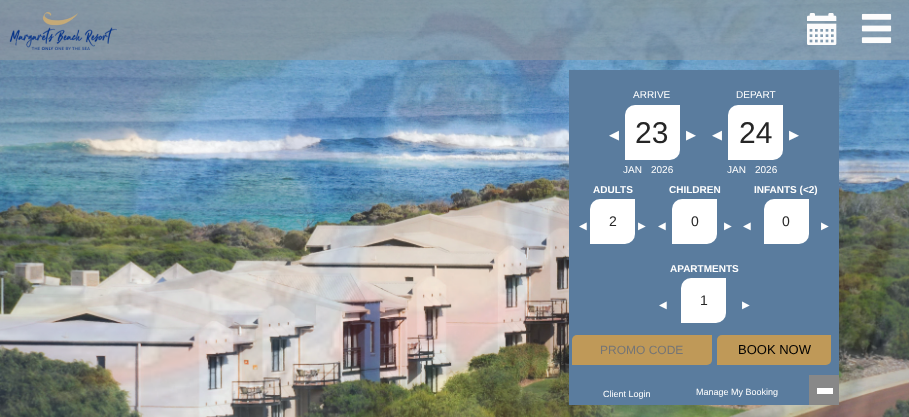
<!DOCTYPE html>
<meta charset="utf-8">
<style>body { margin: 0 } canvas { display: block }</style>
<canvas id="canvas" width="909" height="417"></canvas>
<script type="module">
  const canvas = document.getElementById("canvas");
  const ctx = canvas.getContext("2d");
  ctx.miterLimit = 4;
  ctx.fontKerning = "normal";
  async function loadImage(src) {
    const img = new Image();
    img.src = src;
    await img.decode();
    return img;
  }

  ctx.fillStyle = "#ffffff";
  ctx.fillRect(0, 0, 909, 417);
  ctx.drawImage(await loadImage("img4.png"), 0, 0, 909, 417);
  ctx.drawImage(await loadImage("img5.png"), 0, 0, 909, 417);
  ctx.fillStyle = "rgba(153, 153, 153, 0.5)";
  ctx.fillRect(0, 0, 909, 60);
  ctx.drawImage(await loadImage("img1.png"), 9, 12, 108, 38);
  ctx.drawImage(await loadImage("img2.png"), 807, 13, 30, 32);
  ctx.drawImage(await loadImage("img3.png"), 861, 13, 31, 31);
  ctx.fillStyle = "#5a7c9e";
  ctx.fillRect(569, 70, 270, 335);
  ctx.font = "10px Liberation Sans";
  ctx.fillStyle = "#ffffff";
  ctx.fillText("ARRIVE", 633, 98);
  ctx.beginPath();
  ctx.roundRect(625, 105, 55, 55, [10, 0, 10, 0]);
  ctx.fill();
  ctx.font = "13px DejaVu Sans";
  ctx.fillText("◀", 609, 139);
  ctx.font = "30px Liberation Sans";
  ctx.fillStyle = "#262626";
  ctx.fillText("23", 635, 143);
  ctx.font = "13px DejaVu Sans";
  ctx.fillStyle = "#ffffff";
  ctx.fillText("▶", 686, 139);
  ctx.font = "10px Liberation Sans";
  ctx.fillText("JAN", 623, 173);
  ctx.fillText("2026", 651, 173);
  ctx.fillText("DEPART", 736, 98);
  ctx.beginPath();
  ctx.roundRect(728, 105, 55, 55, [10, 0, 10, 0]);
  ctx.fill();
  ctx.font = "13px DejaVu Sans";
  ctx.fillText("◀", 712, 139);
  ctx.font = "30px Liberation Sans";
  ctx.fillStyle = "#262626";
  ctx.fillText("24", 739, 143);
  ctx.font = "13px DejaVu Sans";
  ctx.fillStyle = "#ffffff";
  ctx.fillText("▶", 789, 139);
  ctx.font = "10px Liberation Sans";
  ctx.fillText("JAN", 727, 173);
  ctx.fillText("2026", 755, 173);
  ctx.font = "bold 10px Liberation Sans";
  ctx.fillText("ADULTS", 593, 193);
  ctx.font = "10px DejaVu Sans";
  ctx.fillText("◀", 579, 229);
  ctx.beginPath();
  ctx.roundRect(590, 199, 45, 45, [10, 0, 10, 0]);
  ctx.fill();
  ctx.font = "14px Liberation Sans";
  ctx.fillStyle = "#262626";
  ctx.fillText("2", 609, 226);
  ctx.font = "10px DejaVu Sans";
  ctx.fillStyle = "#ffffff";
  ctx.fillText("▶", 638, 229);
  ctx.font = "bold 10px Liberation Sans";
  ctx.fillText("CHILDREN", 669, 193);
  ctx.font = "10px DejaVu Sans";
  ctx.fillText("◀", 658, 229);
  ctx.beginPath();
  ctx.roundRect(672, 199, 45, 45, [10, 0, 10, 0]);
  ctx.fill();
  ctx.font = "14px Liberation Sans";
  ctx.fillStyle = "#262626";
  ctx.fillText("0", 691, 226);
  ctx.font = "10px DejaVu Sans";
  ctx.fillStyle = "#ffffff";
  ctx.fillText("▶", 724, 229);
  ctx.font = "bold 10px Liberation Sans";
  ctx.fillText("INFANTS (<2)", 754, 193);
  ctx.font = "10px DejaVu Sans";
  ctx.fillText("◀", 743, 229);
  ctx.beginPath();
  ctx.roundRect(764, 199, 45, 45, [10, 0, 10, 0]);
  ctx.fill();
  ctx.font = "14px Liberation Sans";
  ctx.fillStyle = "#262626";
  ctx.fillText("0", 782, 226);
  ctx.font = "10px DejaVu Sans";
  ctx.fillStyle = "#ffffff";
  ctx.fillText("▶", 821, 229);
  ctx.font = "bold 10px Liberation Sans";
  ctx.fillText("APARTMENTS", 670, 272);
  ctx.font = "10px DejaVu Sans";
  ctx.fillText("◀", 659, 308);
  ctx.beginPath();
  ctx.roundRect(681, 278, 45, 45, [10, 0, 10, 0]);
  ctx.fill();
  ctx.font = "14px Liberation Sans";
  ctx.fillStyle = "#262626";
  ctx.fillText("1", 700, 305);
  ctx.font = "10px DejaVu Sans";
  ctx.fillStyle = "#ffffff";
  ctx.fillText("▶", 742, 308);
  ctx.fillStyle = "#bf9958";
  ctx.beginPath();
  ctx.roundRect(572, 335, 140, 30, [5, 0, 5, 0]);
  ctx.fill();
  ctx.font = "12px Liberation Sans";
  ctx.fillStyle = "#757575";
  ctx.fillText("PROMO CODE", 600, 354);
  ctx.fillStyle = "#bf9958";
  ctx.beginPath();
  ctx.roundRect(717, 335, 114, 30, [5, 0, 5, 0]);
  ctx.fill();
  ctx.font = "13px Liberation Sans";
  ctx.fillStyle = "#000000";
  ctx.fillText("BOOK NOW", 738, 354);
  ctx.font = "9px Liberation Sans";
  ctx.fillStyle = "#ffffff";
  ctx.fillText("Client Login", 603, 397);
  ctx.fillText("Manage My Booking", 696, 395);
  ctx.fillStyle = "#888888";
  ctx.fillRect(809, 375, 30, 30);
  ctx.fillStyle = "#ffffff";
  ctx.fillRect(817, 388, 16, 6);
</script>
